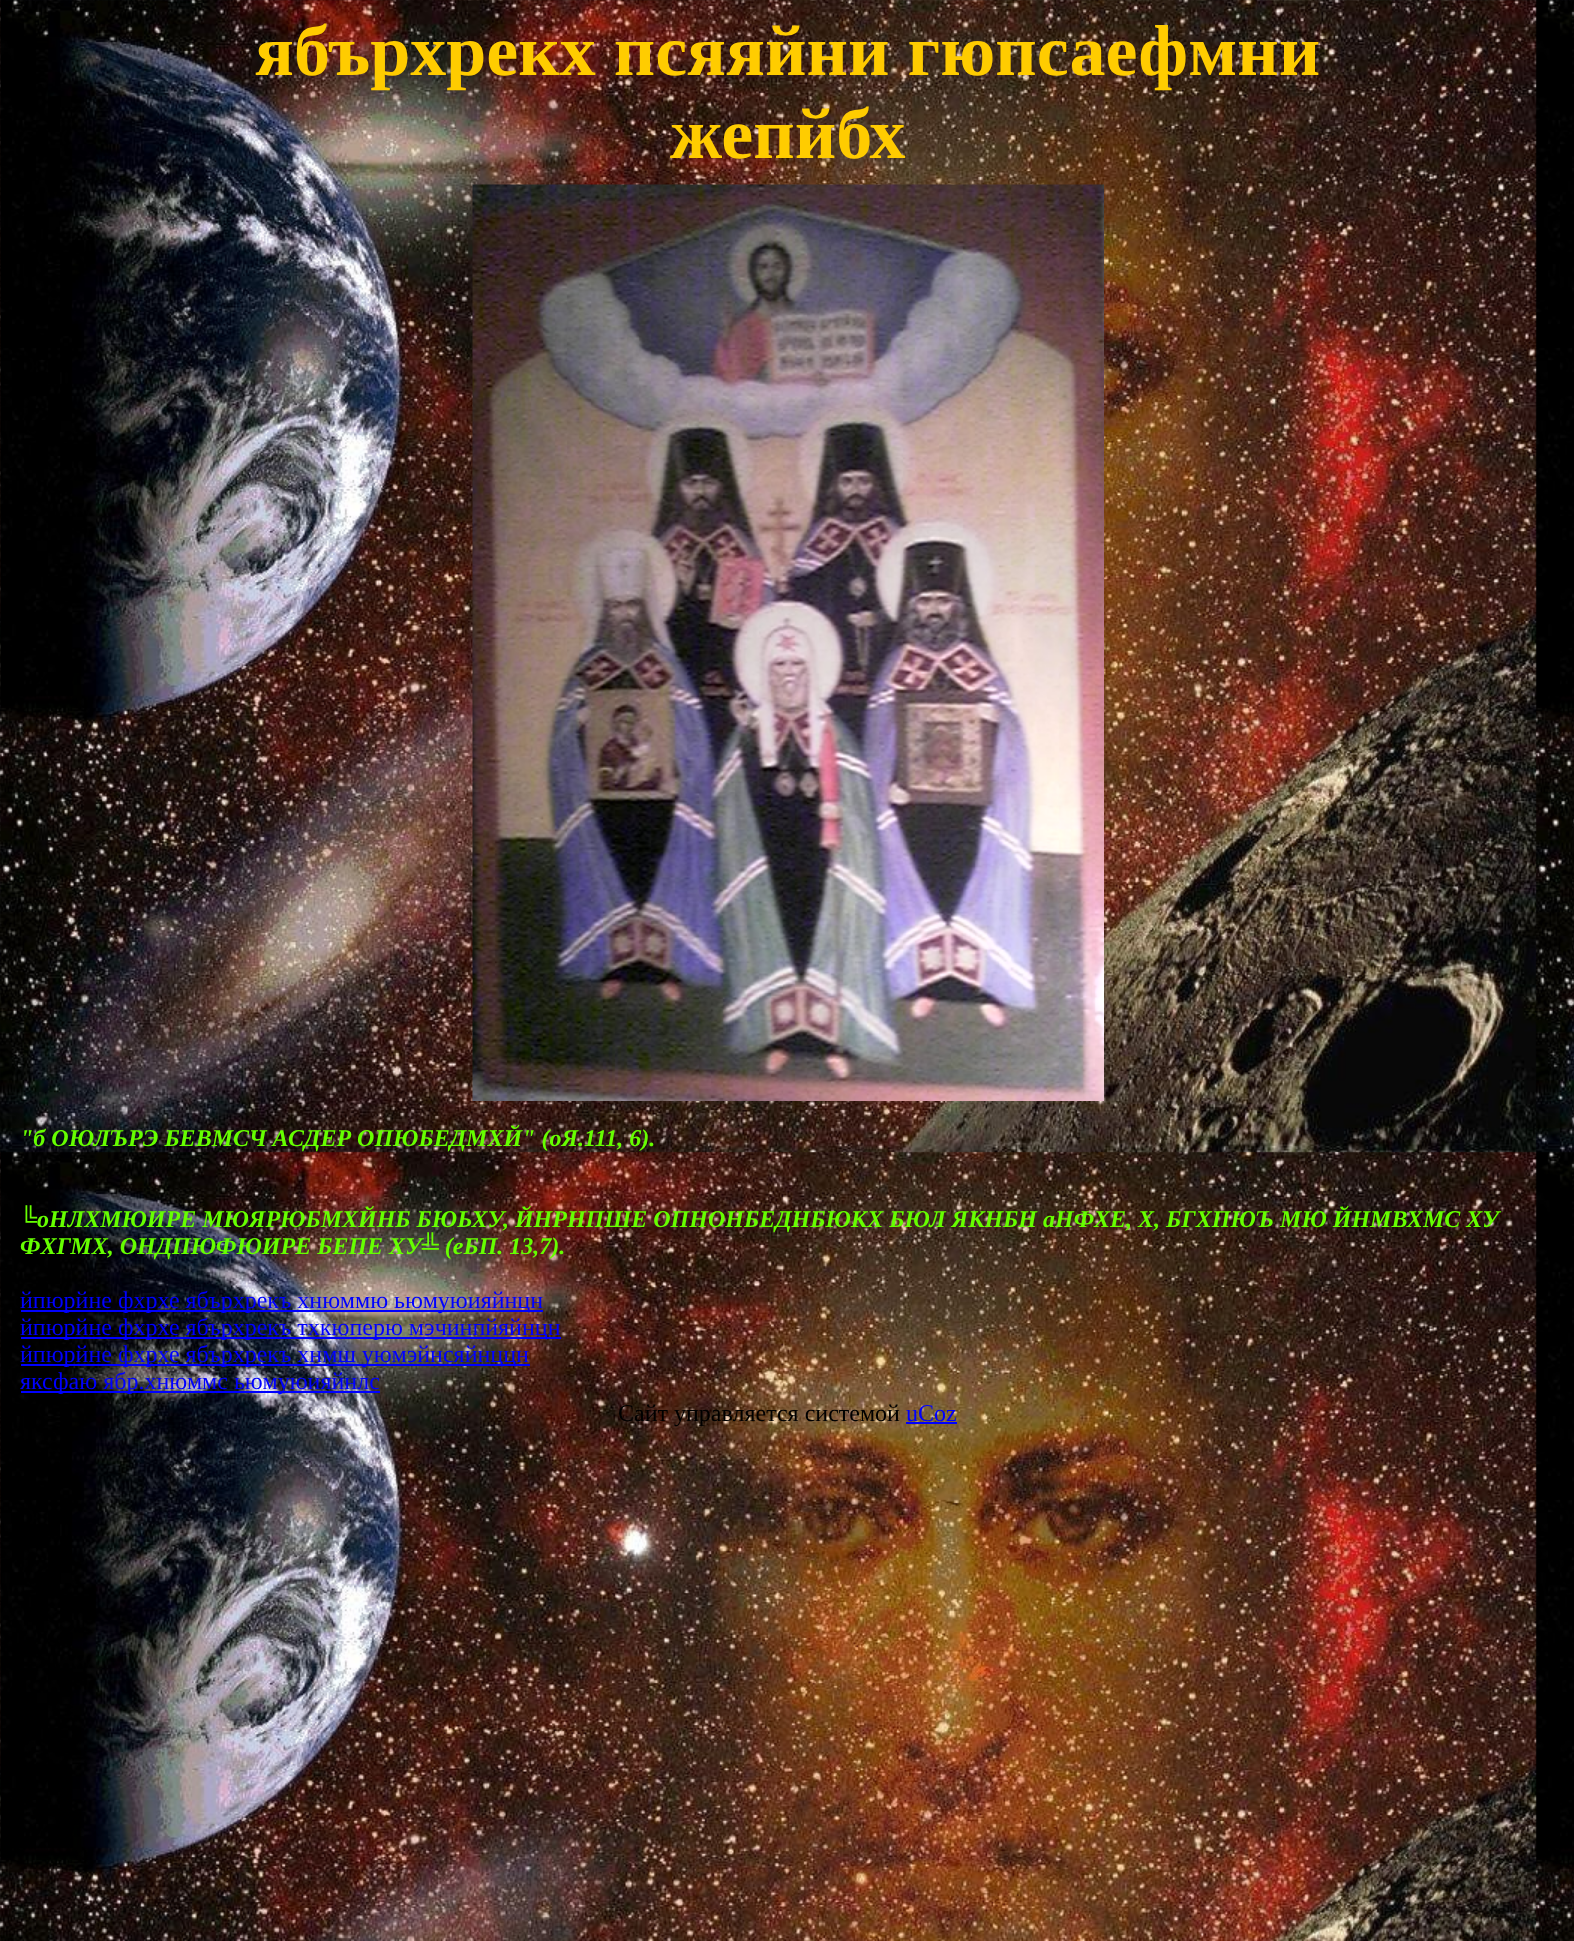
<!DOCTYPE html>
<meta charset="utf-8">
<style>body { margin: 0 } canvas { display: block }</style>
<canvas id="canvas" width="1574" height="1941"></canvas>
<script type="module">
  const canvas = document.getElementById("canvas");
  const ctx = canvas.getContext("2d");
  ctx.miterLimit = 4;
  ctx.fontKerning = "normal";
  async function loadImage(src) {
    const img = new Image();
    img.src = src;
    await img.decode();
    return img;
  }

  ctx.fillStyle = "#ffffff";
  ctx.fillRect(0, 0, 1574, 1941);
  ctx.drawImage(await loadImage("img1.png"), 0, 0, 1574, 1941);
  ctx.font = "bold 72px Liberation Serif";
  ctx.fillStyle = "#ffcc00";
  ctx.fillText("ябърхрекх псяяйни гюпсаефмни", 255, 75);
  ctx.fillText("жепйбх", 670, 158);
  ctx.drawImage(await loadImage("img2.png"), 472, 184, 632, 917);
  ctx.font = "italic bold 24px Liberation Serif";
  ctx.fillStyle = "#66ff00";
  ctx.fillText("\"б ОЮЛЪРЭ БЕВМСЧ АСДЕР ОПЮБЕДМХЙ\" (оЯ.111, 6).", 20, 1146);
  ctx.fillText("╚оНЛХМЮИРЕ МЮЯРЮБМХЙНБ БЮЬХУ, ЙНРНПШЕ ОПНОНБЕДНБЮКХ БЮЛ ЯКНБН аНФХЕ, Х, БГХПЮЪ МЮ ЙНМВХМС ХУ", 20, 1227);
  ctx.fillText("ФХГМХ, ОНДПЮФЮИРЕ БЕПЕ ХУ╩ (еБП. 13,7).", 20, 1254);
  ctx.fillStyle = "#0000ff";
  ctx.fillRect(21, 1310, 522, 2);
  ctx.font = "24px Liberation Serif";
  ctx.fillText("йпюрйне фхрхе ябърхрекъ хнюммю ьюмуюияйнцн", 20, 1308);
  ctx.fillRect(21, 1337, 540, 2);
  ctx.fillText("йпюрйне фхрхе ябърхрекъ тхкюперю мэчинпйяйнцн", 20, 1335);
  ctx.fillRect(21, 1364, 509, 2);
  ctx.fillText("йпюрйне фхрхе ябърхрекъ хнмш уюмэйнсяйнццн", 20, 1362);
  ctx.fillRect(21, 1391, 359, 2);
  ctx.fillText("яксфаю ябр.хнюммс ьюмуюияйнлс", 20, 1389);
  ctx.fillStyle = "#000000";
  ctx.fillText("Сайт управляется системой", 618, 1421);
  ctx.fillStyle = "#0000ff";
  ctx.fillText("uCoz", 906, 1421);
  ctx.fillRect(906, 1422, 51, 2);
</script>
